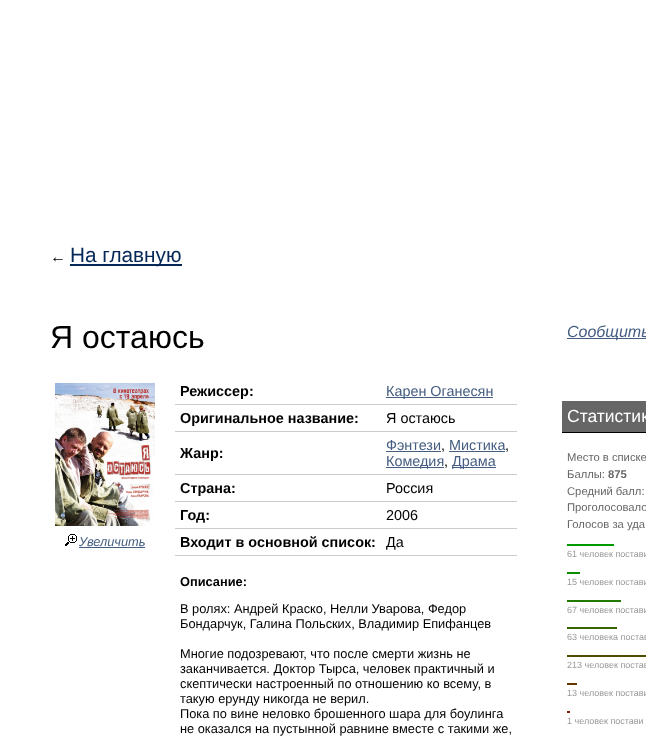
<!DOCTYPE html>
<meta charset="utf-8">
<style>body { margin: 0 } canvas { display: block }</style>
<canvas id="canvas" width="646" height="736"></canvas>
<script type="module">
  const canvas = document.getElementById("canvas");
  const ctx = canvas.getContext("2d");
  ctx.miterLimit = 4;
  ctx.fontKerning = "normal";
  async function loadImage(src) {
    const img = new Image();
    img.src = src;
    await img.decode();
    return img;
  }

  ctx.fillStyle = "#ffffff";
  ctx.fillRect(0, 0, 646, 736);
  ctx.font = "16px Liberation Sans";
  ctx.fillStyle = "#000000";
  ctx.fillText("←", 50, 262);
  ctx.fillStyle = "#062858";
  ctx.fillRect(70, 264, 112, 2);
  ctx.font = "20.75px Liberation Sans";
  ctx.fillText("На главную", 70, 262);
  ctx.font = "32px Liberation Sans";
  ctx.fillStyle = "#000000";
  ctx.fillText("Я остаюсь", 50, 348);
  ctx.fillStyle = "#cccccc";
  ctx.fillRect(175, 404, 342, 1);
  ctx.font = "bold 14.4px Liberation Sans";
  ctx.fillStyle = "#000000";
  ctx.fillText("Режиссер:", 180, 396);
  ctx.fillStyle = "#445d81";
  ctx.fillRect(386, 397, 107, 1);
  ctx.font = "14.4px Liberation Sans";
  ctx.fillText("Карен Оганесян", 386, 396);
  ctx.drawImage(await loadImage("img1.png"), 55, 383, 100, 143);
  ctx.drawImage(await loadImage("img2.png"), 65, 534, 12, 12);
  ctx.font = "italic 12.8px Liberation Sans";
  ctx.fillText("Увеличить", 79, 546);
  ctx.fillRect(79, 547, 66, 1);
  ctx.fillStyle = "#cccccc";
  ctx.fillRect(175, 431, 342, 1);
  ctx.font = "bold 14.4px Liberation Sans";
  ctx.fillStyle = "#000000";
  ctx.fillText("Оригинальное название:", 180, 423);
  ctx.font = "14.4px Liberation Sans";
  ctx.fillText("Я остаюсь", 386, 423);
  ctx.fillStyle = "#cccccc";
  ctx.fillRect(175, 474, 342, 1);
  ctx.font = "bold 14.4px Liberation Sans";
  ctx.fillStyle = "#000000";
  ctx.fillText("Жанр:", 180, 458);
  ctx.font = "14.4px Liberation Sans";
  ctx.fillStyle = "#445d81";
  ctx.fillText("Фэнтези", 386, 450);
  ctx.fillRect(386, 451, 55, 1);
  ctx.fillStyle = "#000000";
  ctx.fillText(",", 441, 450);
  ctx.fillStyle = "#445d81";
  ctx.fillText("Мистика", 449, 450);
  ctx.fillRect(449, 451, 56, 1);
  ctx.fillStyle = "#000000";
  ctx.fillText(",", 505, 450);
  ctx.fillStyle = "#445d81";
  ctx.fillRect(386, 467, 58, 1);
  ctx.fillText("Комедия", 386, 466);
  ctx.fillStyle = "#000000";
  ctx.fillText(",", 444, 466);
  ctx.fillStyle = "#445d81";
  ctx.fillRect(452, 467, 44, 1);
  ctx.fillText("Драма", 452, 466);
  ctx.fillStyle = "#cccccc";
  ctx.fillRect(175, 501, 342, 1);
  ctx.font = "bold 14.4px Liberation Sans";
  ctx.fillStyle = "#000000";
  ctx.fillText("Страна:", 180, 493);
  ctx.font = "14.4px Liberation Sans";
  ctx.fillText("Россия", 386, 493);
  ctx.fillStyle = "#cccccc";
  ctx.fillRect(175, 528, 342, 1);
  ctx.font = "bold 14.4px Liberation Sans";
  ctx.fillStyle = "#000000";
  ctx.fillText("Год:", 180, 520);
  ctx.font = "14.4px Liberation Sans";
  ctx.fillText("2006", 386, 520);
  ctx.fillStyle = "#cccccc";
  ctx.fillRect(175, 555, 342, 1);
  ctx.font = "bold 14.4px Liberation Sans";
  ctx.fillStyle = "#000000";
  ctx.fillText("Входит в основной список:", 180, 547);
  ctx.font = "14.4px Liberation Sans";
  ctx.fillText("Да", 386, 547);
  ctx.font = "bold 12.8px Liberation Sans";
  ctx.fillText("Описание:", 180, 586);
  ctx.font = "12.8px Liberation Sans";
  ctx.fillText("В ролях: Андрей Краско, Нелли Уварова, Федор", 180, 613);
  ctx.fillText("Бондарчук, Галина Польских, Владимир Епифанцев", 180, 628);
  ctx.fillText("Многие подозревают, что после смерти жизнь не", 180, 658);
  ctx.fillText("заканчивается. Доктор Тырса, человек практичный и", 180, 673);
  ctx.fillText("скептически настроенный по отношению ко всему, в", 180, 688);
  ctx.fillText("такую ерунду никогда не верил.", 180, 703);
  ctx.fillText("Пока по вине неловко брошенного шара для боулинга", 180, 718);
  ctx.fillText("не оказался на пустынной равнине вместе с такими же,", 180, 733);
  ctx.fillStyle = "#445d81";
  ctx.fillRect(567, 338, 79, 1);
  ctx.font = "italic 16px Liberation Sans";
  ctx.fillText("Сообщить", 567, 337);
  ctx.fillStyle = "#666666";
  ctx.fillRect(562, 401, 84, 31);
  ctx.fillStyle = "#000000";
  ctx.fillRect(562, 432, 84, 1);
  ctx.font = "17.5px Liberation Sans";
  ctx.fillStyle = "#ffffff";
  ctx.fillText("Статистик", 567, 422);
  ctx.font = "11.25px Liberation Sans";
  ctx.fillStyle = "#666666";
  ctx.fillText("Место в списке", 567, 461);
  ctx.fillText("Баллы:", 567, 478);
  ctx.font = "bold 11.25px Liberation Sans";
  ctx.fillText("875", 608, 478);
  ctx.font = "11.25px Liberation Sans";
  ctx.fillText("Средний балл:", 567, 495);
  ctx.fillText("Проголосовало", 567, 511);
  ctx.fillText("Голосов за уда", 567, 528);
  ctx.fillStyle = "#009900";
  ctx.fillRect(567, 544, 47, 2);
  ctx.font = "9px Liberation Sans";
  ctx.fillStyle = "#999999";
  ctx.fillText("61 человек постави", 567, 557);
  ctx.fillStyle = "#0d8c00";
  ctx.fillRect(567, 572, 13, 2);
  ctx.fillStyle = "#999999";
  ctx.fillText("15 человек постави", 567, 585);
  ctx.fillStyle = "#1f7a00";
  ctx.fillRect(567, 600, 54, 2);
  ctx.fillStyle = "#999999";
  ctx.fillText("67 человек постави", 567, 613);
  ctx.fillStyle = "#356400";
  ctx.fillRect(567, 627, 50, 2);
  ctx.fillStyle = "#999999";
  ctx.fillText("63 человека постав", 567, 640);
  ctx.fillStyle = "#4d4d00";
  ctx.fillRect(567, 655, 79, 2);
  ctx.fillStyle = "#999999";
  ctx.fillText("213 человек постав", 567, 668);
  ctx.fillStyle = "#653500";
  ctx.fillRect(567, 683, 10, 2);
  ctx.fillStyle = "#999999";
  ctx.fillText("13 человек постави", 567, 696);
  ctx.fillStyle = "#7a1f00";
  ctx.fillRect(567, 711, 3, 2);
  ctx.fillStyle = "#999999";
  ctx.fillText("1 человек постави", 567, 724);
</script>
